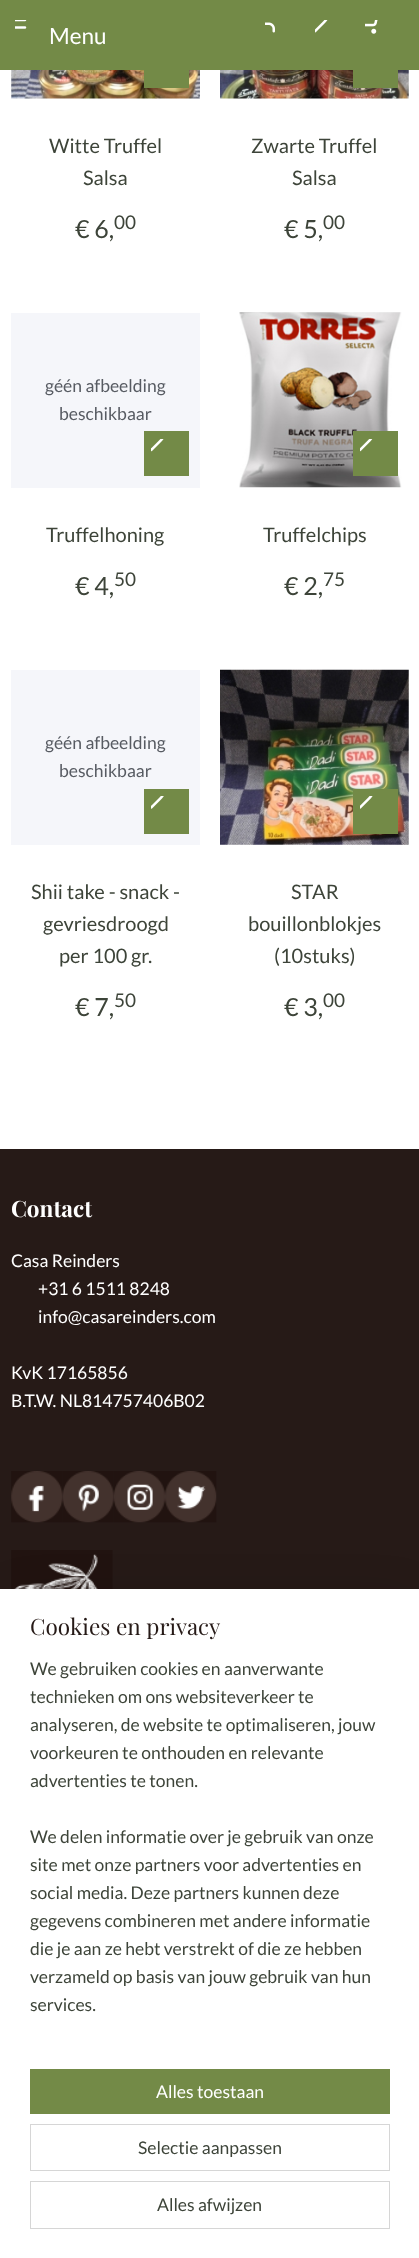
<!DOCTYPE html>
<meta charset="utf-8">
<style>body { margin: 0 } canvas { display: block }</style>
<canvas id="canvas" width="419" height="2258"></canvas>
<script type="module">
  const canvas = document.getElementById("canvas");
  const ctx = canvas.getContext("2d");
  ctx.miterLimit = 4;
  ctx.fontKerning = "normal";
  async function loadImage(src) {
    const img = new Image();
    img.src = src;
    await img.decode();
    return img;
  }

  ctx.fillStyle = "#ffffff";
  ctx.fillRect(0, 0, 419, 2258);
  ctx.fillStyle = "#738a47";
  ctx.fillRect(0, 0, 419, 70);
  ctx.drawImage(await loadImage("img1.png"), 15, 20, 12, 9);
  ctx.font = "22.5px Lato";
  ctx.fillStyle = "#ffffff";
  ctx.fillText("Menu", 49, 44);
  ctx.drawImage(await loadImage("img2.png"), 265, 22, 10, 11);
  ctx.drawImage(await loadImage("img3.png"), 315, 20, 13, 13);
  ctx.drawImage(await loadImage("img4.png"), 365, 20, 13, 14);
  ctx.drawImage(await loadImage("img5.png"), 11, 70, 189, 29);
  ctx.fillStyle = "#738a47";
  ctx.fillRect(144, 70, 45, 18);
  ctx.font = "20px Lato";
  ctx.fillStyle = "#3d4439";
  ctx.fillText("Witte Truffel", 49, 153);
  ctx.fillText("Salsa", 83, 185);
  ctx.font = "25px Lato";
  ctx.fillText("€ 6,", 75, 238);
  ctx.font = "19px Lato";
  ctx.fillText("00", 114, 229);
  ctx.drawImage(await loadImage("img6.png"), 220, 70, 189, 29);
  ctx.fillStyle = "#738a47";
  ctx.fillRect(353, 70, 45, 18);
  ctx.font = "20px Lato";
  ctx.fillStyle = "#3d4439";
  ctx.fillText("Zwarte Truffel", 251, 153);
  ctx.fillText("Salsa", 292, 185);
  ctx.font = "25px Lato";
  ctx.fillText("€ 5,", 284, 238);
  ctx.font = "19px Lato";
  ctx.fillText("00", 323, 229);
  ctx.fillStyle = "#f5f6fa";
  ctx.fillRect(11, 313, 189, 175);
  ctx.font = "17.5px Lato";
  ctx.fillStyle = "#575b62";
  ctx.fillText("géén afbeelding", 45, 392);
  ctx.fillText("beschikbaar", 59, 420);
  ctx.fillStyle = "#738a47";
  ctx.fillRect(144, 431, 45, 45);
  ctx.drawImage(await loadImage("img7.png"), 151, 439, 13, 13);
  ctx.font = "20px Lato";
  ctx.fillStyle = "#3d4439";
  ctx.fillText("Truffelhoning", 46, 542);
  ctx.font = "25px Lato";
  ctx.fillText("€ 4,", 75, 595);
  ctx.font = "19px Lato";
  ctx.fillText("50", 114, 586);
  ctx.drawImage(await loadImage("img8.png"), 239, 312, 163, 176);
  ctx.fillStyle = "#738a47";
  ctx.fillRect(353, 431, 45, 45);
  ctx.drawImage(await loadImage("img9.png"), 360, 439, 13, 13);
  ctx.font = "20px Lato";
  ctx.fillStyle = "#3d4439";
  ctx.fillText("Truffelchips", 263, 542);
  ctx.font = "25px Lato";
  ctx.fillText("€ 2,", 284, 595);
  ctx.font = "19px Lato";
  ctx.fillText("75", 323, 586);
  ctx.fillStyle = "#f5f6fa";
  ctx.fillRect(11, 670, 189, 175);
  ctx.font = "17.5px Lato";
  ctx.fillStyle = "#575b62";
  ctx.fillText("géén afbeelding", 45, 749);
  ctx.fillText("beschikbaar", 59, 777);
  ctx.fillStyle = "#738a47";
  ctx.fillRect(144, 789, 45, 45);
  ctx.drawImage(await loadImage("img10.png"), 151, 796, 13, 13);
  ctx.font = "20px Lato";
  ctx.fillStyle = "#3d4439";
  ctx.fillText("Shii take - snack -", 31, 899);
  ctx.fillText("gevriesdroogd", 43, 931);
  ctx.fillText("per 100 gr.", 59, 963);
  ctx.font = "25px Lato";
  ctx.fillText("€ 7,", 75, 1016);
  ctx.font = "19px Lato";
  ctx.fillText("50", 114, 1007);
  ctx.drawImage(await loadImage("img11.png"), 220, 669, 189, 176);
  ctx.fillStyle = "#738a47";
  ctx.fillRect(353, 789, 45, 45);
  ctx.drawImage(await loadImage("img12.png"), 360, 796, 13, 13);
  ctx.font = "20px Lato";
  ctx.fillStyle = "#3d4439";
  ctx.fillText("STAR", 291, 899);
  ctx.fillText("bouillonblokjes", 248, 931);
  ctx.fillText("(10stuks)", 274, 963);
  ctx.font = "25px Lato";
  ctx.fillText("€ 3,", 284, 1016);
  ctx.font = "19px Lato";
  ctx.fillText("00", 323, 1007);
  ctx.fillStyle = "#261a17";
  ctx.fillRect(0, 1149, 419, 440);
  ctx.font = "bold 22.5px Playfair Display";
  ctx.fillStyle = "#ffffff";
  ctx.fillText("Contact", 11, 1217);
  ctx.font = "17.5px Lato";
  ctx.fillText("Casa Reinders", 11, 1267);
  ctx.fillText("+31 6 1511 8248", 38, 1295);
  ctx.fillText("info@casareinders.com", 38, 1323);
  ctx.fillText("KvK 17165856", 11, 1379);
  ctx.fillText("B.T.W. NL814757406B02", 11, 1407);
  ctx.drawImage(await loadImage("img13.png"), 11, 1471, 52, 52);
  ctx.drawImage(await loadImage("img14.png"), 62, 1471, 52, 52);
  ctx.drawImage(await loadImage("img15.png"), 114, 1471, 51, 52);
  ctx.drawImage(await loadImage("img16.png"), 165, 1471, 52, 52);
  ctx.drawImage(await loadImage("img17.png"), 11, 1550, 102, 39);
  ctx.fillStyle = "rgba(0, 0, 0, 0.2)";
  ctx.filter = "blur(22.5px)";
  ctx.beginPath();
  ctx.rect(13, 1601, 395, 645);
  ctx.fill();
  ctx.filter = "none";
  ctx.fillStyle = "#ffffff";
  ctx.fillRect(0, 1589, 419, 669);
  ctx.font = "22.5px Playfair Display";
  ctx.fillStyle = "#261a17";
  ctx.fillText("Cookies en privacy", 30, 1635);
  ctx.font = "17.5px Lato";
  ctx.fillStyle = "#3d4439";
  ctx.fillText("We gebruiken cookies en aanverwante", 30, 1675);
  ctx.fillText("technieken om ons websiteverkeer te", 30, 1703);
  ctx.fillText("analyseren, de website te optimaliseren, jouw", 30, 1731);
  ctx.fillText("voorkeuren te onthouden en relevante", 30, 1759);
  ctx.fillText("advertenties te tonen.", 30, 1787);
  ctx.fillText("We delen informatie over je gebruik van onze", 30, 1843);
  ctx.fillText("site met onze partners voor advertenties en", 30, 1871);
  ctx.fillText("social media. Deze partners kunnen deze", 30, 1899);
  ctx.fillText("gegevens combineren met andere informatie", 30, 1927);
  ctx.fillText("die je aan ze hebt verstrekt of die ze hebben", 30, 1955);
  ctx.fillText("verzameld op basis van jouw gebruik van hun", 30, 1983);
  ctx.fillText("services.", 30, 2011);
  ctx.fillStyle = "#738a47";
  ctx.fillRect(30, 2069, 360, 45);
  ctx.fillStyle = "#ffffff";
  ctx.fillText("Alles toestaan", 156, 2098);
  ctx.strokeStyle = "#d6d6d6";
  ctx.strokeRect(30.5, 2124.5, 359, 46);
  ctx.fillStyle = "#3d4439";
  ctx.fillText("Selectie aanpassen", 138, 2154);
  ctx.strokeRect(30.5, 2181.5, 359, 47);
  ctx.fillText("Alles afwijzen", 157, 2211);
</script>
